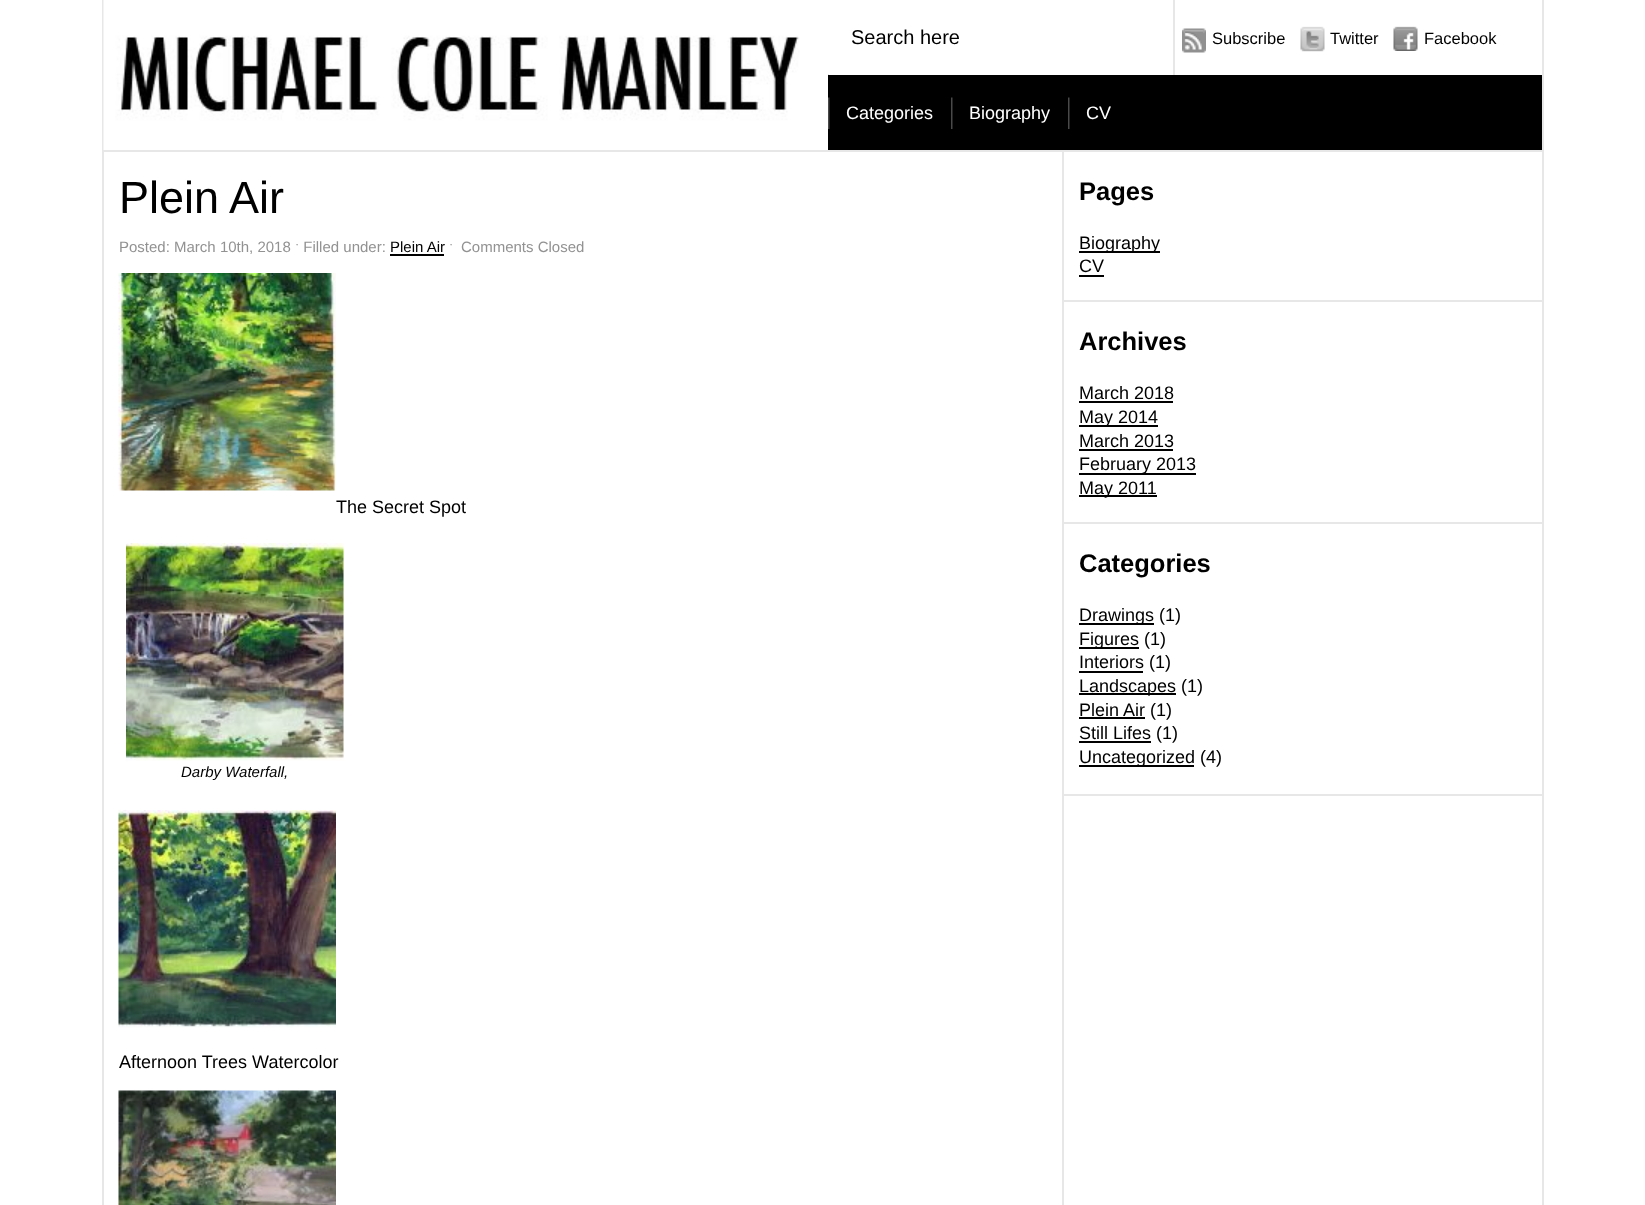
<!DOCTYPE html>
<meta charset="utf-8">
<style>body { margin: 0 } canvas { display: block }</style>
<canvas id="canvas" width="1645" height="1205"></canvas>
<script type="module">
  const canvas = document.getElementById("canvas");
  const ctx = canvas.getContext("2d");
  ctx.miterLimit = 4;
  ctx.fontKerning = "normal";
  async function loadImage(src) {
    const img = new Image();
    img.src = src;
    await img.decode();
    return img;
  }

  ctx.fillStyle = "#ffffff";
  ctx.fillRect(0, 0, 1645, 1205);
  ctx.fillStyle = "#e7e7e7";
  ctx.fillRect(1542, 0, 2, 1205);
  ctx.fillRect(102, 0, 2, 1205);
  ctx.fillRect(1064, 150, 478, 2);
  ctx.fillRect(828, 74, 1, 1);
  ctx.drawImage(await loadImage("img1.png"), 103, 0, 725, 150);
  ctx.fillRect(1173, 0, 2, 75);
  ctx.font = "20px Liberation Sans";
  ctx.fillStyle = "#000000";
  ctx.fillText("Search here", 851, 44);
  ctx.drawImage(await loadImage("img2.png"), 1182, 28, 24, 25);
  ctx.font = "16.5px Liberation Sans";
  ctx.fillText("Subscribe", 1212, 44);
  ctx.drawImage(await loadImage("img3.png"), 1300, 26, 25, 26);
  ctx.fillText("Twitter", 1330, 44);
  ctx.drawImage(await loadImage("img4.png"), 1393, 26, 25, 25);
  ctx.fillText("Facebook", 1424, 44);
  ctx.fillRect(828, 75, 714, 75);
  ctx.drawImage(await loadImage("img5.png"), 828, 97, 2, 32);
  ctx.font = "18px Liberation Sans";
  ctx.fillStyle = "#ffffff";
  ctx.fillText("Categories", 846, 119);
  ctx.drawImage(await loadImage("img5.png"), 951, 97, 2, 32);
  ctx.fillText("Biography", 969, 119);
  ctx.drawImage(await loadImage("img5.png"), 1068, 97, 2, 32);
  ctx.fillText("CV", 1086, 119);
  ctx.fillStyle = "#e7e7e7";
  ctx.fillRect(1062, 150, 2, 1055);
  ctx.fillRect(104, 150, 958, 2);
  ctx.font = "45px Liberation Sans";
  ctx.fillStyle = "#000000";
  ctx.fillText("Plein Air", 119, 213);
  ctx.font = "15px Liberation Sans";
  ctx.fillStyle = "#929292";
  ctx.fillText("Posted: March 10th, 2018 ˑ Filled under:", 119, 252);
  ctx.fillStyle = "#000000";
  ctx.fillText("Plein Air", 390, 252);
  ctx.fillRect(390, 254, 54, 2);
  ctx.fillStyle = "#929292";
  ctx.fillText("ˑ", 449, 252);
  ctx.fillText("Comments Closed", 461, 252);
  ctx.drawImage(await loadImage("img6.png"), 118, 273, 218, 218);
  ctx.font = "18px Liberation Sans";
  ctx.fillStyle = "#000000";
  ctx.fillText("The Secret Spot", 336, 513);
  ctx.drawImage(await loadImage("img7.png"), 126, 543, 218, 218);
  ctx.font = "italic 15px Liberation Sans";
  ctx.fillText("Darby Waterfall,", 181, 777);
  ctx.drawImage(await loadImage("img8.png"), 118, 810, 218, 218);
  ctx.font = "18px Liberation Sans";
  ctx.fillText("Afternoon Trees Watercolor", 119, 1068);
  ctx.drawImage(await loadImage("img9.png"), 118, 1090, 218, 115);
  ctx.fillStyle = "#e7e7e7";
  ctx.fillRect(1062, 794, 480, 2);
  ctx.font = "bold 25.5px Liberation Sans";
  ctx.fillStyle = "#000000";
  ctx.fillText("Pages", 1079, 200);
  ctx.fillRect(1079, 251, 81, 2);
  ctx.font = "18px Liberation Sans";
  ctx.fillText("Biography", 1079, 249);
  ctx.fillText("CV", 1079, 272);
  ctx.fillRect(1079, 275, 25, 2);
  ctx.fillStyle = "#e7e7e7";
  ctx.fillRect(1064, 300, 478, 2);
  ctx.font = "bold 25.5px Liberation Sans";
  ctx.fillStyle = "#000000";
  ctx.fillText("Archives", 1079, 350);
  ctx.font = "18px Liberation Sans";
  ctx.fillText("March 2018", 1079, 399);
  ctx.fillRect(1079, 401, 94, 2);
  ctx.fillRect(1079, 425, 79, 2);
  ctx.fillText("May 2014", 1079, 423);
  ctx.fillText("March 2013", 1079, 447);
  ctx.fillRect(1079, 449, 94, 2);
  ctx.fillRect(1079, 473, 117, 2);
  ctx.fillText("February 2013", 1079, 470);
  ctx.fillRect(1079, 495, 78, 2);
  ctx.fillText("May 2011", 1079, 494);
  ctx.fillStyle = "#e7e7e7";
  ctx.fillRect(1064, 522, 478, 2);
  ctx.font = "bold 25.5px Liberation Sans";
  ctx.fillStyle = "#000000";
  ctx.fillText("Categories", 1079, 572);
  ctx.fillRect(1079, 623, 75, 2);
  ctx.font = "18px Liberation Sans";
  ctx.fillText("Drawings (1)", 1079, 621);
  ctx.fillRect(1079, 647, 60, 2);
  ctx.fillText("Figures (1)", 1079, 645);
  ctx.fillRect(1079, 671, 64, 2);
  ctx.fillText("Interiors (1)", 1079, 668);
  ctx.fillRect(1079, 693, 97, 2);
  ctx.fillText("Landscapes (1)", 1079, 692);
  ctx.fillRect(1079, 717, 66, 2);
  ctx.fillText("Plein Air (1)", 1079, 716);
  ctx.fillRect(1079, 741, 72, 2);
  ctx.fillText("Still Lifes (1)", 1079, 739);
  ctx.fillRect(1079, 765, 115, 2);
  ctx.fillText("Uncategorized (4)", 1079, 763);
</script>
